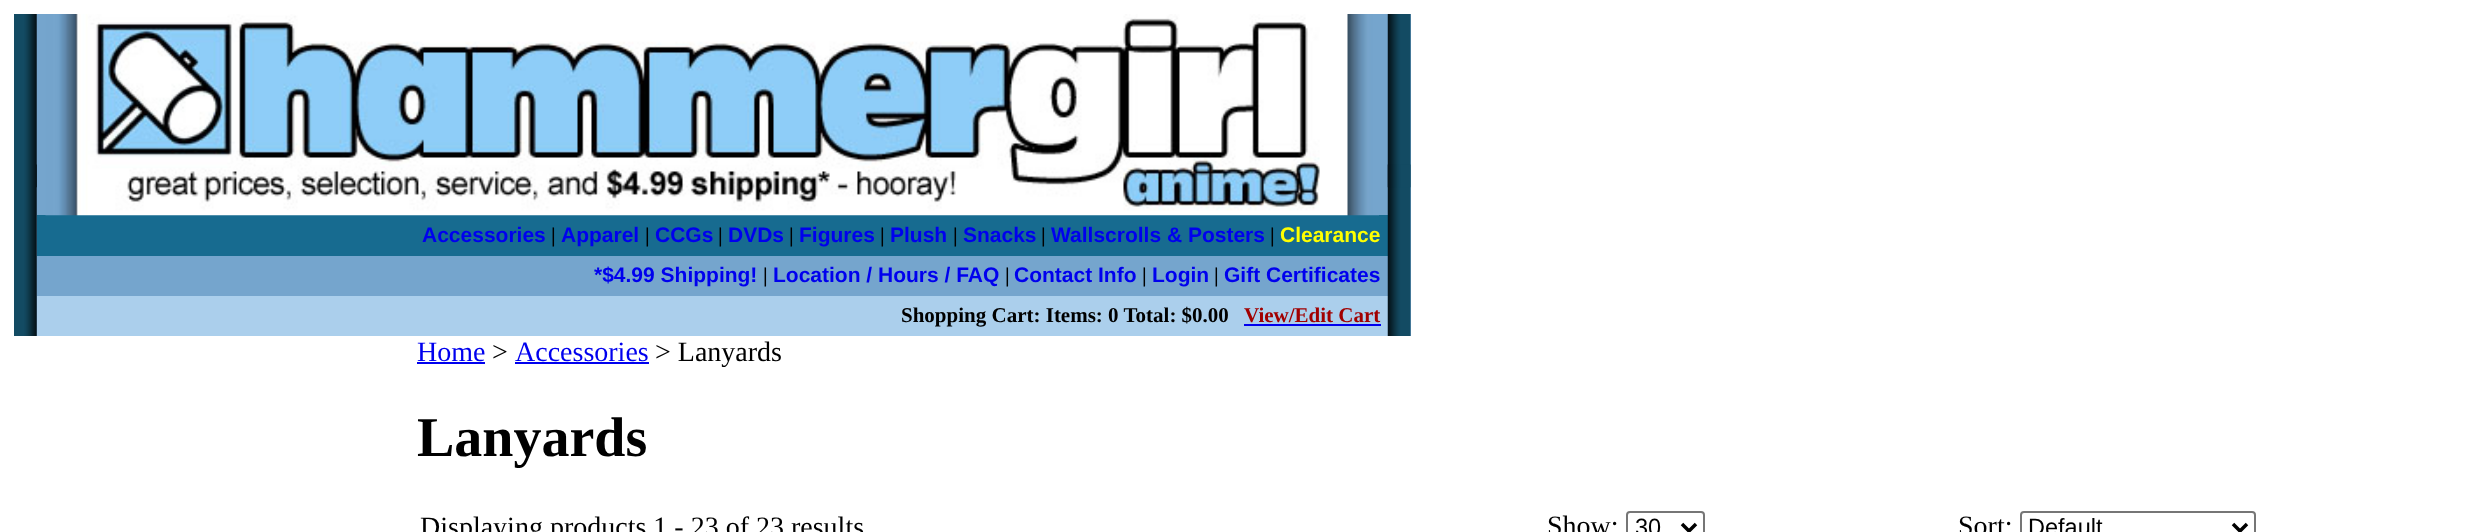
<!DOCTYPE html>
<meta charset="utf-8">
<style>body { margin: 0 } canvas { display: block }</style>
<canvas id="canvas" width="2488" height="532"></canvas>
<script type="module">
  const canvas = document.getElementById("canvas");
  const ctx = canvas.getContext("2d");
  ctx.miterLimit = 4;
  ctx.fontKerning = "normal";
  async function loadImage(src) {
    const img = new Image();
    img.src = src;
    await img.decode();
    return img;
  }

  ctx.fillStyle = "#ffffff";
  ctx.fillRect(0, 0, 2488, 532);
  ctx.fillStyle = "#75a5cd";
  ctx.fillRect(36, 14, 1375, 322);
  ctx.drawImage(await loadImage("img1.png"), 14, 14, 23, 322);
  ctx.drawImage(await loadImage("img2.png"), 36, 164, 1, 24);
  ctx.fillStyle = "#176b90";
  ctx.fillRect(37, 215, 1351, 41);
  ctx.drawImage(await loadImage("img3.png"), 45, 14, 1334, 202);
  ctx.font = "bold 21px Liberation Sans";
  ctx.fillStyle = "#0000ee";
  ctx.fillText("Accessories", 422, 242);
  ctx.font = "bold 21px Liberation Serif";
  ctx.fillStyle = "#000000";
  ctx.fillText("|", 551, 242);
  ctx.font = "bold 21px Liberation Sans";
  ctx.fillStyle = "#0000ee";
  ctx.fillText("Apparel", 561, 242);
  ctx.font = "bold 21px Liberation Serif";
  ctx.fillStyle = "#000000";
  ctx.fillText("|", 645, 242);
  ctx.font = "bold 21px Liberation Sans";
  ctx.fillStyle = "#0000ee";
  ctx.fillText("CCGs", 655, 242);
  ctx.font = "bold 21px Liberation Serif";
  ctx.fillStyle = "#000000";
  ctx.fillText("|", 718, 242);
  ctx.font = "bold 21px Liberation Sans";
  ctx.fillStyle = "#0000ee";
  ctx.fillText("DVDs", 728, 242);
  ctx.font = "bold 21px Liberation Serif";
  ctx.fillStyle = "#000000";
  ctx.fillText("|", 789, 242);
  ctx.font = "bold 21px Liberation Sans";
  ctx.fillStyle = "#0000ee";
  ctx.fillText("Figures", 799, 242);
  ctx.font = "bold 21px Liberation Serif";
  ctx.fillStyle = "#000000";
  ctx.fillText("|", 880, 242);
  ctx.font = "bold 21px Liberation Sans";
  ctx.fillStyle = "#0000ee";
  ctx.fillText("Plush", 890, 242);
  ctx.font = "bold 21px Liberation Serif";
  ctx.fillStyle = "#000000";
  ctx.fillText("|", 953, 242);
  ctx.font = "bold 21px Liberation Sans";
  ctx.fillStyle = "#0000ee";
  ctx.fillText("Snacks", 963, 242);
  ctx.font = "bold 21px Liberation Serif";
  ctx.fillStyle = "#000000";
  ctx.fillText("|", 1041, 242);
  ctx.font = "bold 21px Liberation Sans";
  ctx.fillStyle = "#0000ee";
  ctx.fillText("Wallscrolls & Posters", 1051, 242);
  ctx.font = "bold 21px Liberation Serif";
  ctx.fillStyle = "#000000";
  ctx.fillText("|", 1270, 242);
  ctx.font = "bold 21px Liberation Sans";
  ctx.fillStyle = "#ffff00";
  ctx.fillText("Clearance", 1280, 242);
  ctx.fillStyle = "#0000ee";
  ctx.fillText("*$4.99 Shipping!", 594, 282);
  ctx.font = "bold 21px Liberation Serif";
  ctx.fillStyle = "#000000";
  ctx.fillText("|", 763, 282);
  ctx.font = "bold 21px Liberation Sans";
  ctx.fillStyle = "#0000ee";
  ctx.fillText("Location / Hours / FAQ", 773, 282);
  ctx.font = "bold 21px Liberation Serif";
  ctx.fillStyle = "#000000";
  ctx.fillText("|", 1005, 282);
  ctx.font = "bold 21px Liberation Sans";
  ctx.fillStyle = "#0000ee";
  ctx.fillText("Contact Info", 1014, 282);
  ctx.font = "bold 21px Liberation Serif";
  ctx.fillStyle = "#000000";
  ctx.fillText("|", 1142, 282);
  ctx.font = "bold 21px Liberation Sans";
  ctx.fillStyle = "#0000ee";
  ctx.fillText("Login", 1152, 282);
  ctx.font = "bold 21px Liberation Serif";
  ctx.fillStyle = "#000000";
  ctx.fillText("|", 1214, 282);
  ctx.font = "bold 21px Liberation Sans";
  ctx.fillStyle = "#0000ee";
  ctx.fillText("Gift Certificates", 1224, 282);
  ctx.fillStyle = "#abcfec";
  ctx.fillRect(37, 296, 1351, 40);
  ctx.font = "bold 21px Liberation Serif";
  ctx.fillStyle = "#000000";
  ctx.fillText("Shopping Cart: Items: 0 Total: $0.00", 901, 322);
  ctx.fillStyle = "#a10000";
  ctx.fillText("View/Edit Cart", 1244, 322);
  ctx.fillStyle = "#0000ee";
  ctx.fillRect(1244, 324, 137, 2);
  ctx.drawImage(await loadImage("img4.png"), 1387, 14, 24, 322);
  ctx.drawImage(await loadImage("img5.png"), 1387, 164, 24, 24);
  ctx.font = "28px Liberation Serif";
  ctx.fillText("Home", 417, 361);
  ctx.fillRect(417, 362, 68, 2);
  ctx.fillStyle = "#000000";
  ctx.fillText(">", 492, 361);
  ctx.fillStyle = "#0000ee";
  ctx.fillText("Accessories", 515, 361);
  ctx.fillRect(515, 362, 134, 2);
  ctx.fillStyle = "#000000";
  ctx.fillText("> Lanyards", 655, 361);
  ctx.font = "bold 56px Liberation Serif";
  ctx.fillText("Lanyards", 417, 456);
  ctx.font = "28px Liberation Serif";
  ctx.fillText("Displaying products 1 - 23 of 23 results", 420, 536);
  ctx.fillText("Show:", 1547, 535);
  ctx.beginPath();
  ctx.roundRect(1627, 512, 77, 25, 3);
  ctx.strokeStyle = "#767676";
  ctx.lineWidth = 2;
  ctx.stroke();
  ctx.beginPath();
  ctx.moveTo(1682, 524);
  ctx.lineTo(1689, 531);
  ctx.lineTo(1696, 524);
  ctx.strokeStyle = "#000000";
  ctx.lineWidth = 3.5;
  ctx.stroke();
  ctx.font = "23.5px Liberation Sans";
  ctx.fillText("30", 1635, 535);
  ctx.font = "28px Liberation Serif";
  ctx.fillText("Sort:", 1958, 535);
  ctx.beginPath();
  ctx.roundRect(2021, 512, 234, 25, 3);
  ctx.strokeStyle = "#767676";
  ctx.lineWidth = 2;
  ctx.stroke();
  ctx.beginPath();
  ctx.moveTo(2233, 524);
  ctx.lineTo(2240, 531);
  ctx.lineTo(2247, 524);
  ctx.strokeStyle = "#000000";
  ctx.lineWidth = 3.5;
  ctx.stroke();
  ctx.font = "23.5px Liberation Sans";
  ctx.fillText("Default", 2028, 535);
</script>
